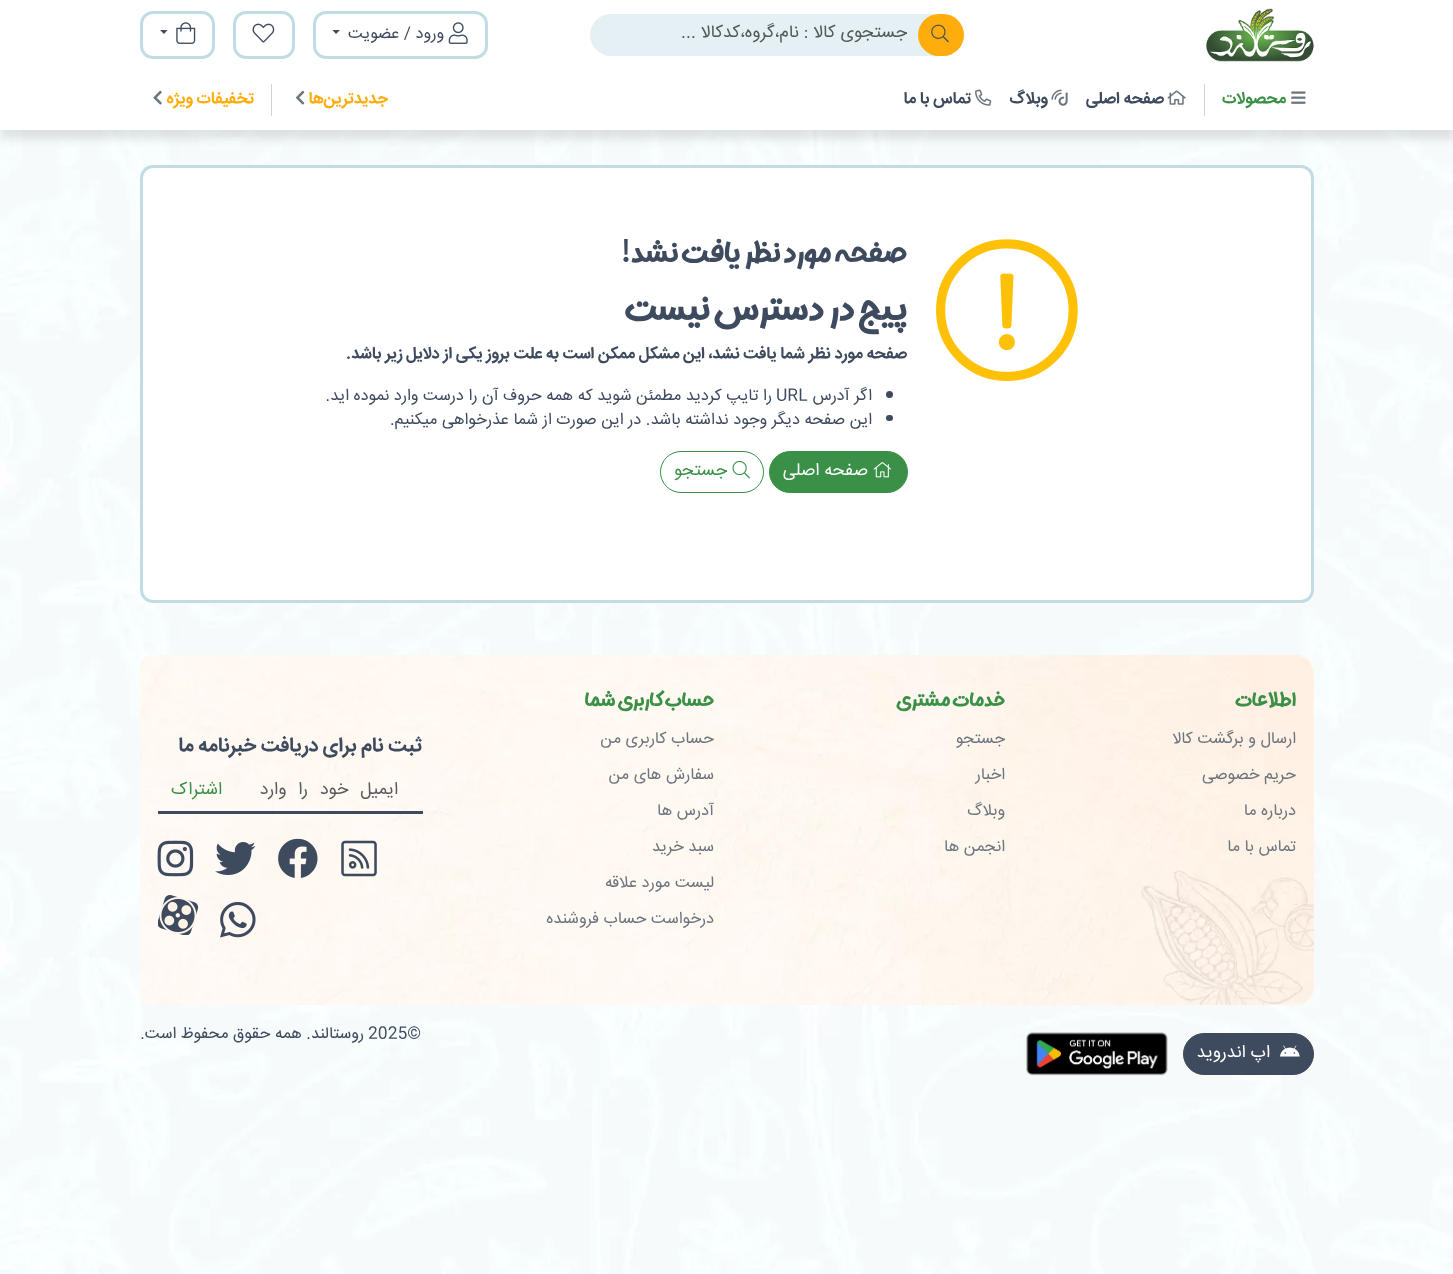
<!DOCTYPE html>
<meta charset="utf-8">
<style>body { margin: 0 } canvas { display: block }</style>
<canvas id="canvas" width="1453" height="1274"></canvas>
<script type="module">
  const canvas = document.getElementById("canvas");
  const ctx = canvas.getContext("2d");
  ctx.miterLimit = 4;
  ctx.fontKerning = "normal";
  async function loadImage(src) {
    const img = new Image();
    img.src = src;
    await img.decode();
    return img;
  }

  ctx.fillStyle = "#ffffff";
  ctx.fillRect(0, 0, 1453, 1274);
  ctx.drawImage(await loadImage("img1.png"), 0, 130, 1453, 1144);
  ctx.drawImage(await loadImage("img2.png"), 1206, 8, 108, 54);
  ctx.fillStyle = "#e4f0f3";
  ctx.beginPath();
  ctx.roundRect(590, 14, 374, 42, 21);
  ctx.fill();
  ctx.fillStyle = "#ffac0d";
  ctx.beginPath();
  ctx.roundRect(918, 14, 46, 42, 21);
  ctx.fill();
  ctx.drawImage(await loadImage("img3.png"), 931, 24, 18, 19);
  ctx.direction = "rtl";
  ctx.font = "17.5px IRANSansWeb";
  ctx.fillStyle = "#52585c";
  ctx.fillText("جستجوی کالا : نام،گروه،کدکالا ...", 907, 37);
  ctx.beginPath();
  ctx.roundRect(314.5, 12.5, 172, 45, 11.5);
  ctx.strokeStyle = "#c1dde3";
  ctx.lineWidth = 3;
  ctx.stroke();
  ctx.drawImage(await loadImage("img4.png"), 448, 22, 20, 22);
  ctx.font = "16.25px IRANSansWeb";
  ctx.fillStyle = "#3e4a5e";
  ctx.fillText("ورود / عضویت", 444, 38);
  ctx.beginPath();
  ctx.moveTo(332.5, 30);
  ctx.lineTo(340, 30);
  ctx.lineTo(336, 34);
  ctx.closePath();
  ctx.fill();
  ctx.beginPath();
  ctx.roundRect(234.5, 12.5, 59, 45, 11.5);
  ctx.stroke();
  ctx.drawImage(await loadImage("img5.png"), 252, 23, 23, 20);
  ctx.beginPath();
  ctx.roundRect(141.5, 12.5, 72, 45, 11.5);
  ctx.stroke();
  ctx.drawImage(await loadImage("img6.png"), 176, 22, 20, 22);
  ctx.beginPath();
  ctx.moveTo(160, 30);
  ctx.lineTo(167.5, 30);
  ctx.lineTo(164, 34);
  ctx.closePath();
  ctx.fill();
  ctx.fillStyle = "rgba(0, 0, 0, 0.1)";
  ctx.filter = "blur(4.5px)";
  ctx.beginPath();
  ctx.rect(0, 79, 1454, 60);
  ctx.fill();
  ctx.filter = "none";
  ctx.fillStyle = "#ffffff";
  ctx.fillRect(0, 73, 1453, 57);
  ctx.drawImage(await loadImage("img7.png"), 1291, 91, 15, 13);
  ctx.font = "bold 16.25px IRANSansWeb";
  ctx.fillStyle = "#3a9046";
  ctx.fillText("محصولات", 1286, 103);
  ctx.fillStyle = "#cfd2d7";
  ctx.fillRect(1204, 84, 1, 32);
  ctx.drawImage(await loadImage("img8.png"), 1167, 90, 19, 15);
  ctx.fillStyle = "#3e4a5e";
  ctx.fillText("صفحه اصلی", 1164, 103);
  ctx.drawImage(await loadImage("img9.png"), 1051, 89, 17, 17);
  ctx.fillText("وبلاگ", 1048, 103);
  ctx.drawImage(await loadImage("img10.png"), 975, 89, 17, 17);
  ctx.fillText("تماس با ما", 971, 103);
  ctx.fillStyle = "#ffac0d";
  ctx.fillText("جدیدترین‌ها", 388, 103);
  ctx.drawImage(await loadImage("img11.png"), 295, 90, 10, 15);
  ctx.fillStyle = "#cfd2d7";
  ctx.fillRect(271, 84, 1, 32);
  ctx.fillStyle = "#ffac0d";
  ctx.fillText("تخفیفات ویژه", 254, 103);
  ctx.drawImage(await loadImage("img12.png"), 153, 90, 9, 15);
  ctx.fillStyle = "#ffffff";
  ctx.beginPath();
  ctx.roundRect(141.5, 166.5, 1171, 435, 11.5);
  ctx.fill();
  ctx.stroke();
  ctx.drawImage(await loadImage("img13.png"), 936, 239, 142, 142);
  ctx.font = "30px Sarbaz";
  ctx.fillStyle = "#3e4a5e";
  ctx.fillText("صفحه مورد نظر یافت نشد!", 907, 262);
  ctx.font = "36.25px Sarbaz";
  ctx.fillText("پیج در دسترس نیست", 907, 320);
  ctx.font = "bold 16.25px IRANSansWeb";
  ctx.fillText("صفحه مورد نظر شما یافت نشد، این مشکل ممکن است به علت بروز یکی از دلایل زیر باشد.", 907, 358);
  ctx.beginPath();
  ctx.arc(889.5, 394.5, 3.5, 0, Math.PI * 2);
  ctx.fill();
  ctx.font = "16.25px IRANSansWeb";
  ctx.fillText("اگر آدرس", 872, 400);
  ctx.direction = "ltr";
  ctx.fillText("URL", 776, 400);
  ctx.direction = "rtl";
  ctx.fillText("را تایپ کردید مطمئن شوید که همه حروف آن را درست وارد نموده اید.", 772, 400);
  ctx.beginPath();
  ctx.roundRect(886, 415, 7, 6, 3);
  ctx.fill();
  ctx.fillText("این صفحه دیگر وجود نداشته باشد. در این صورت از شما عذرخواهی میکنیم.", 872, 424);
  ctx.fillStyle = "#3a9046";
  ctx.beginPath();
  ctx.roundRect(769.5, 451.5, 138, 41, 20.5);
  ctx.fill();
  ctx.strokeStyle = "#3a9046";
  ctx.lineWidth = 1;
  ctx.stroke();
  ctx.drawImage(await loadImage("img14.png"), 873, 462, 18, 16);
  ctx.font = "17.5px IRANSansWeb";
  ctx.fillStyle = "#f6fafb";
  ctx.fillText("صفحه اصلی", 868, 475);
  ctx.beginPath();
  ctx.roundRect(660.5, 451.5, 103, 41, 20.5);
  ctx.stroke();
  ctx.drawImage(await loadImage("img15.png"), 732, 460, 18, 19);
  ctx.fillStyle = "#3a9046";
  ctx.fillText("جستجو", 727, 475);
  ctx.fillStyle = "#fff4e8";
  ctx.beginPath();
  ctx.roundRect(140, 655, 1174, 350, 13);
  ctx.fill();
  ctx.drawImage(await loadImage("img16.png"), 140, 655, 1174, 350);
  ctx.font = "20px Sarbaz";
  ctx.fillStyle = "#3a9046";
  ctx.fillText("اطلاعات", 1296, 706);
  ctx.font = "16.25px IRANSansWeb";
  ctx.fillStyle = "#6c757d";
  ctx.fillText("ارسال و برگشت کالا", 1296, 743);
  ctx.fillText("حریم خصوصی", 1296, 779);
  ctx.fillText("درباره ما", 1296, 815);
  ctx.fillText("تماس با ما", 1296, 851);
  ctx.font = "20px Sarbaz";
  ctx.fillStyle = "#3a9046";
  ctx.fillText("خدمات مشتری", 1005, 706);
  ctx.font = "16.25px IRANSansWeb";
  ctx.fillStyle = "#6c757d";
  ctx.fillText("جستجو", 1005, 743);
  ctx.fillText("اخبار", 1005, 779);
  ctx.fillText("وبلاگ", 1005, 815);
  ctx.fillText("انجمن ها", 1005, 851);
  ctx.font = "20px Sarbaz";
  ctx.fillStyle = "#3a9046";
  ctx.fillText("حساب کاربری شما", 714, 706);
  ctx.font = "16.25px IRANSansWeb";
  ctx.fillStyle = "#6c757d";
  ctx.fillText("حساب کاربری من", 714, 743);
  ctx.fillText("سفارش های من", 714, 779);
  ctx.fillText("آدرس ها", 714, 815);
  ctx.fillText("سبد خرید", 714, 851);
  ctx.fillText("لیست مورد علاقه", 714, 887);
  ctx.fillText("درخواست حساب فروشنده", 714, 923);
  ctx.font = "bold 20px IRANSansWeb";
  ctx.fillStyle = "#3e4a5e";
  ctx.fillText("ثبت نام برای دریافت خبرنامه ما", 422, 751);
  ctx.fillRect(158, 811, 265, 3);
  ctx.wordSpacing = "7px";
  ctx.font = "17.5px IRANSansWeb";
  ctx.fillStyle = "#585a5c";
  ctx.fillText("ایمیل خود را وارد", 398, 794);
  ctx.wordSpacing = "0px";
  ctx.fillStyle = "#3a9046";
  ctx.fillText("اشتراک", 222, 794);
  ctx.drawImage(await loadImage("img17.png"), 341, 840, 36, 37);
  ctx.drawImage(await loadImage("img18.png"), 278, 838, 40, 40);
  ctx.drawImage(await loadImage("img19.png"), 215, 842, 41, 33);
  ctx.drawImage(await loadImage("img20.png"), 157, 840, 37, 37);
  ctx.drawImage(await loadImage("img21.png"), 220, 902, 36, 36);
  ctx.drawImage(await loadImage("img22.png"), 158, 895, 41, 40);
  ctx.direction = "ltr";
  ctx.font = "16.25px IRANSansWeb";
  ctx.fillStyle = "#3e4a5e";
  ctx.fillText("2025©", 368, 1038);
  ctx.direction = "rtl";
  ctx.fillText("روستالند. همه حقوق محفوظ است.", 364, 1038);
  ctx.beginPath();
  ctx.roundRect(1183.5, 1033.5, 130, 41, 20.5);
  ctx.fill();
  ctx.strokeStyle = "#3e4a5e";
  ctx.stroke();
  ctx.drawImage(await loadImage("img23.png"), 1280, 1045, 20, 12);
  ctx.font = "17.5px IRANSansWeb";
  ctx.fillStyle = "#ffffff";
  ctx.fillText("اپ اندروید", 1270, 1057);
  ctx.drawImage(await loadImage("img24.png"), 1026, 1032, 142, 44);
</script>
